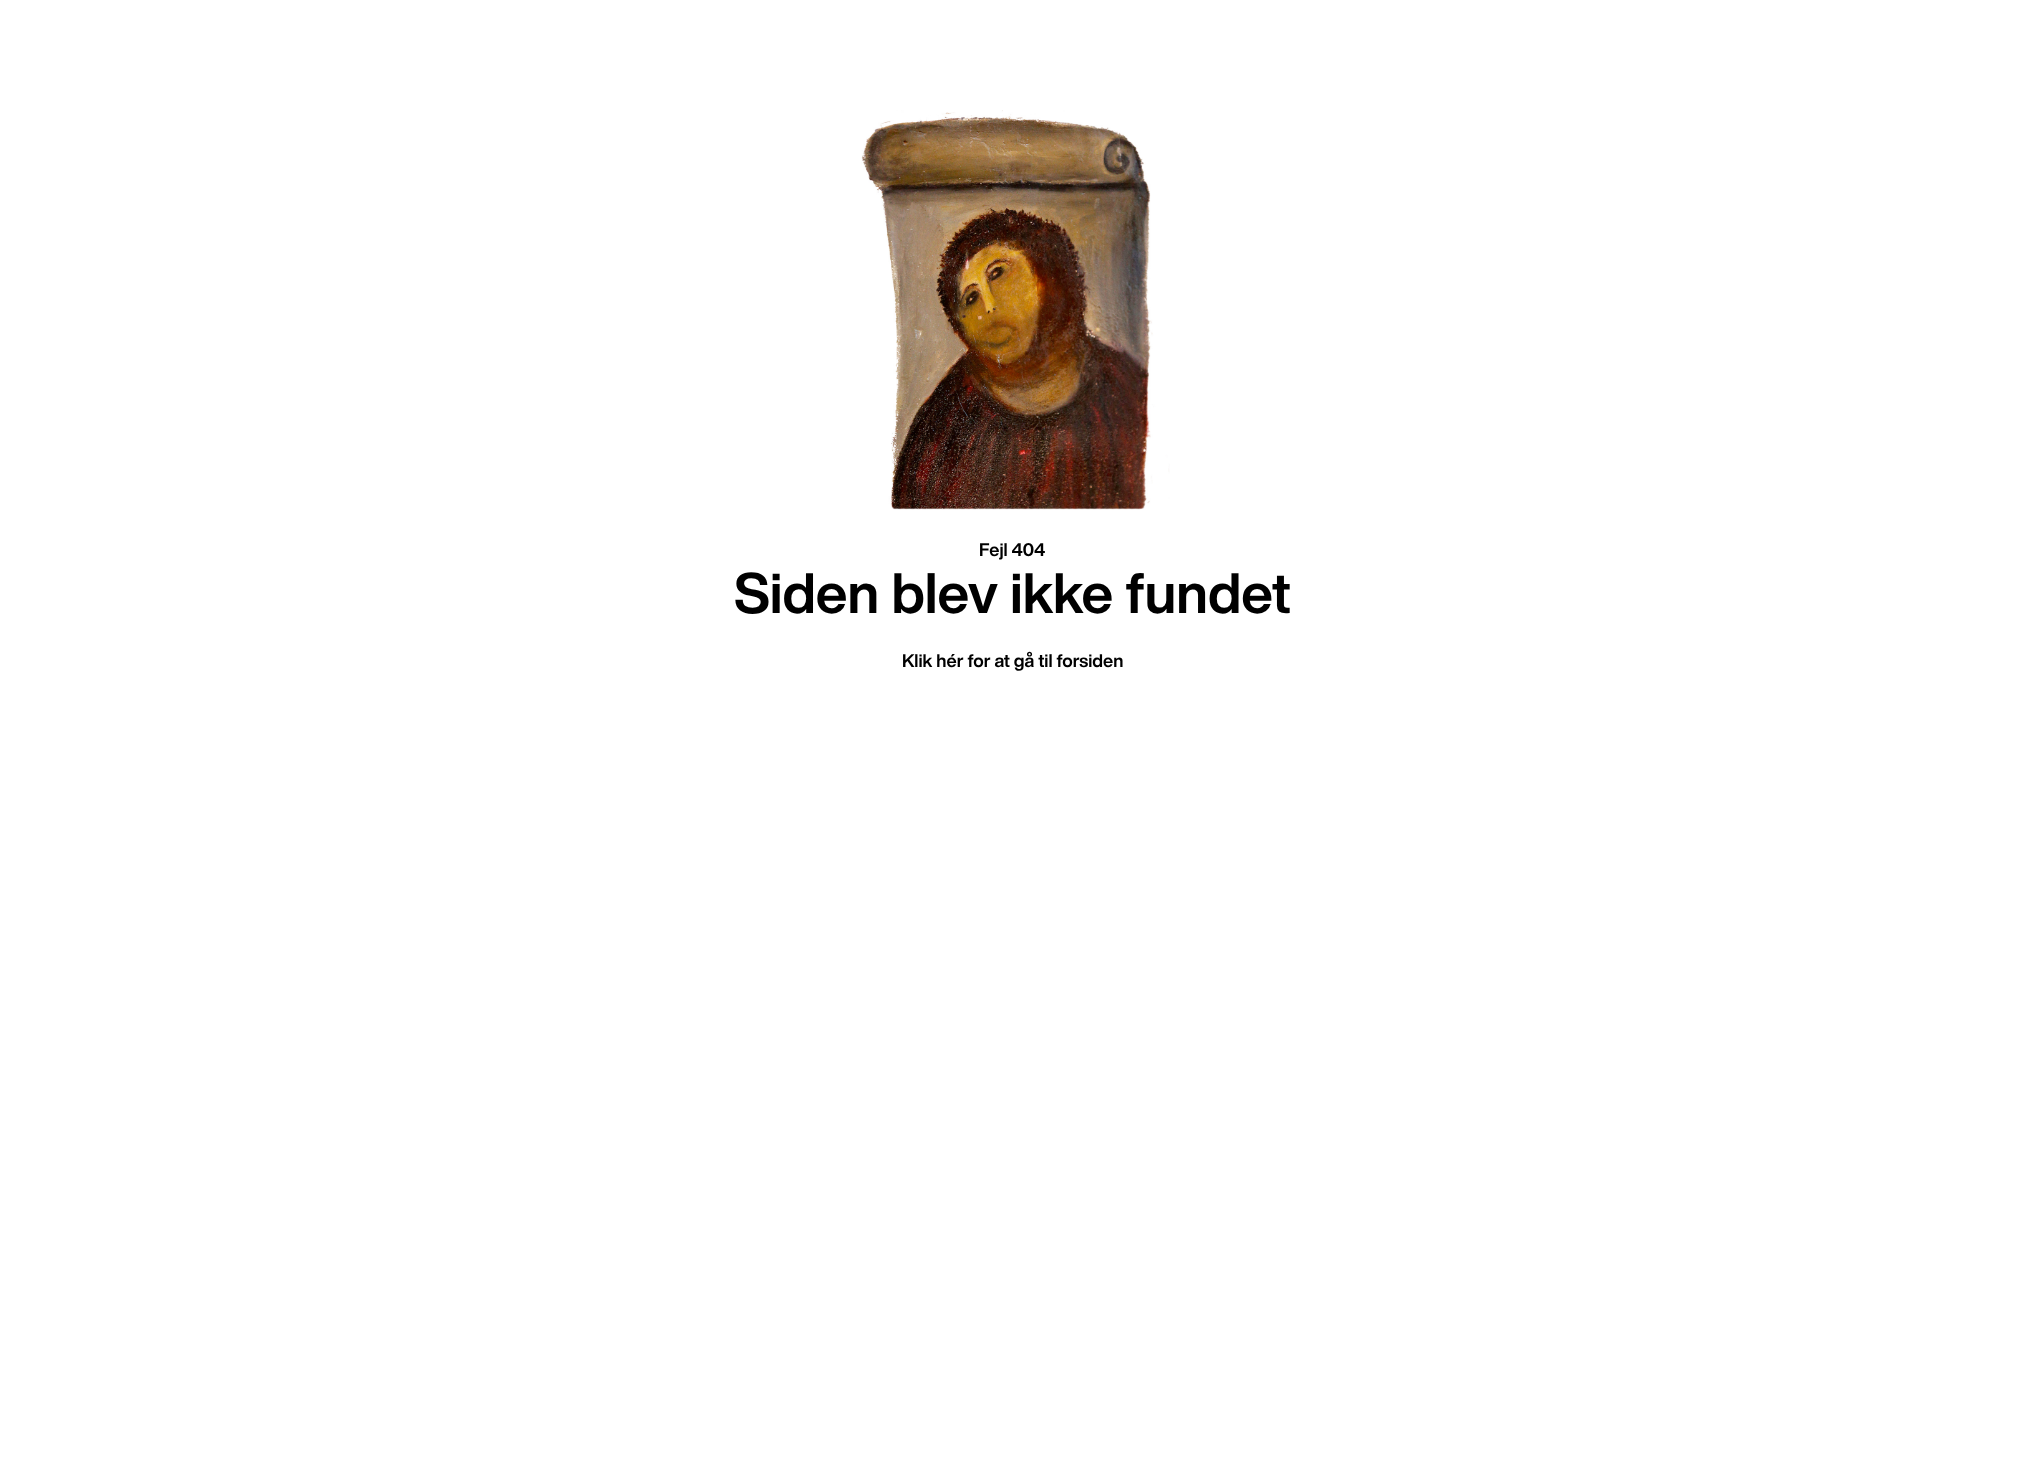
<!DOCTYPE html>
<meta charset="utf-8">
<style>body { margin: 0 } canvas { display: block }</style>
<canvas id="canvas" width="2025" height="1462"></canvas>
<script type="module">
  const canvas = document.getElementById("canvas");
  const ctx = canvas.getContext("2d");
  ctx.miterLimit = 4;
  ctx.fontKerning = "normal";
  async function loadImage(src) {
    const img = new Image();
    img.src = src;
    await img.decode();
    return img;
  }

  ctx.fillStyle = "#ffffff";
  ctx.fillRect(0, 0, 2025, 1462);
  ctx.drawImage(await loadImage("img1.png"), 861, 110, 309, 400);
  ctx.font = "bold 18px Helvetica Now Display";
  ctx.fillStyle = "#000000";
  ctx.fillText("Fejl 404", 979, 556);
  ctx.font = "bold 56px Helvetica Now Display";
  ctx.fillText("Siden blev ikke fundet", 734, 613);
  ctx.font = "bold 18px Helvetica Now Display";
  ctx.fillText("Klik hér for at gå til forsiden", 902, 667);
</script>
